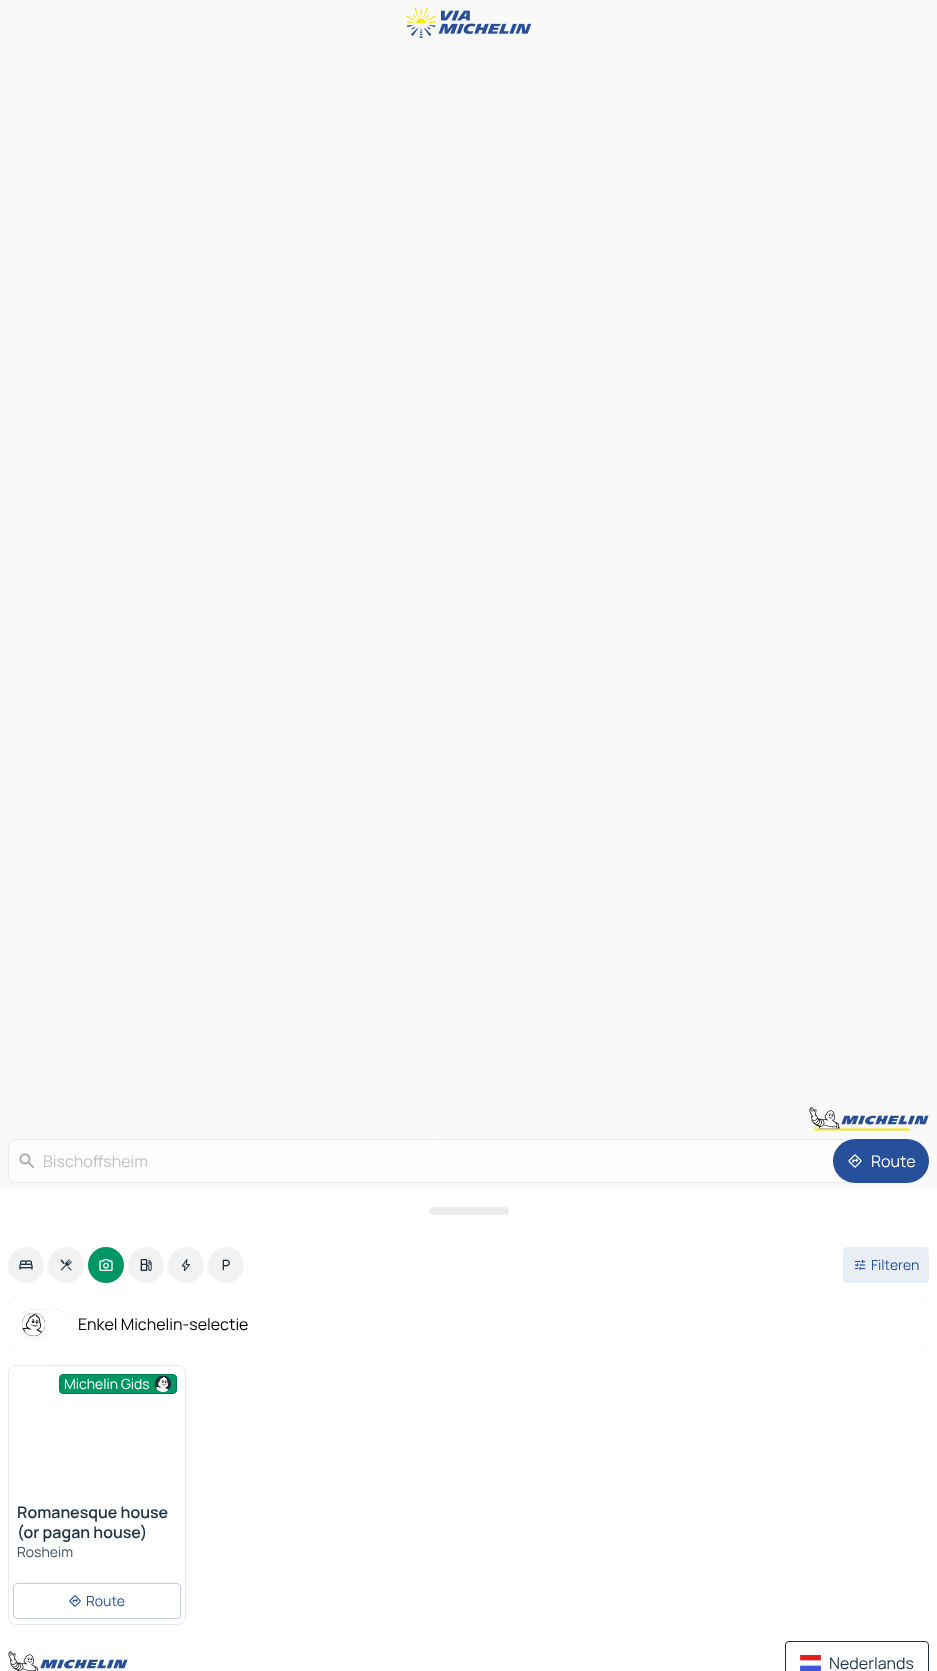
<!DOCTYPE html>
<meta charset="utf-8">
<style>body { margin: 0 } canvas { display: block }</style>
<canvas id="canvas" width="937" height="1671"></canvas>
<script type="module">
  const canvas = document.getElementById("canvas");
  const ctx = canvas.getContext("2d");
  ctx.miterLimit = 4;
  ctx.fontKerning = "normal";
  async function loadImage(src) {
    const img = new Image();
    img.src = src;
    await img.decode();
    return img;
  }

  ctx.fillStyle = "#f9f9f9";
  ctx.fillRect(0, 0, 937, 1671);
  ctx.drawImage(await loadImage("img1.png"), 406, 8, 126, 30);
  ctx.drawImage(await loadImage("img2.png"), 809, 1107, 120, 24);
  ctx.fillStyle = "#fdfdfe";
  ctx.beginPath();
  ctx.roundRect(8.5, 1139.5, 848, 43, 7.5);
  ctx.fill();
  ctx.strokeStyle = "#e8eaec";
  ctx.stroke();
  ctx.drawImage(await loadImage("img3.png"), 19, 1153, 16, 16);
  ctx.font = "200 16px Manrope";
  ctx.fillStyle = "#c0c0c0";
  ctx.fillText("Bischoffsheim", 43, 1167);
  ctx.fillStyle = "#27509b";
  ctx.beginPath();
  ctx.roundRect(833, 1139, 96, 44, 22);
  ctx.fill();
  ctx.drawImage(await loadImage("img4.png"), 848, 1154, 14, 14);
  ctx.fillStyle = "#ffffff";
  ctx.fillText("Route", 871, 1167);
  ctx.fillRect(0, 1191, 937, 480);
  ctx.fillStyle = "#ececec";
  ctx.beginPath();
  ctx.roundRect(429, 1207, 80, 8, 4);
  ctx.fill();
  ctx.fillStyle = "#f2f2f2";
  ctx.beginPath();
  ctx.arc(26, 1265, 18, 0, Math.PI * 2);
  ctx.fill();
  ctx.drawImage(await loadImage("img5.png"), 19, 1260, 14, 10);
  ctx.beginPath();
  ctx.arc(66, 1265, 18, 0, Math.PI * 2);
  ctx.fill();
  ctx.drawImage(await loadImage("img6.png"), 60, 1259, 12, 12);
  ctx.fillStyle = "#009764";
  ctx.beginPath();
  ctx.arc(106, 1265, 18, 0, Math.PI * 2);
  ctx.fill();
  ctx.drawImage(await loadImage("img7.png"), 99, 1259, 14, 12);
  ctx.fillStyle = "#f2f2f2";
  ctx.beginPath();
  ctx.arc(146, 1265, 18, 0, Math.PI * 2);
  ctx.fill();
  ctx.drawImage(await loadImage("img8.png"), 140, 1259, 12, 12);
  ctx.beginPath();
  ctx.arc(186, 1265, 18, 0, Math.PI * 2);
  ctx.fill();
  ctx.drawImage(await loadImage("img9.png"), 181, 1259, 9, 12);
  ctx.beginPath();
  ctx.arc(226, 1265, 18, 0, Math.PI * 2);
  ctx.fill();
  ctx.drawImage(await loadImage("img10.png"), 222, 1259, 8, 12);
  ctx.fillStyle = "#e9eef5";
  ctx.beginPath();
  ctx.roundRect(843, 1247, 86, 36, 4);
  ctx.fill();
  ctx.drawImage(await loadImage("img11.png"), 854, 1259, 12, 12);
  ctx.font = "200 14px Manrope";
  ctx.fillStyle = "#27509b";
  ctx.fillText("Filteren", 871, 1270);
  ctx.fillStyle = "rgba(12, 26, 75, 0.24)";
  ctx.filter = "blur(0.5px)";
  ctx.beginPath();
  ctx.roundRect(8, 1299, 921, 50, 8);
  ctx.fill();
  ctx.filter = "none";
  ctx.fillStyle = "#ffffff";
  ctx.beginPath();
  ctx.roundRect(8, 1299, 921, 50, 8);
  ctx.fill();
  ctx.fillStyle = "#ebebeb";
  ctx.beginPath();
  ctx.moveTo(33, 1310);
  ctx.bezierCurveTo(41, 1310, 54, 1308, 61, 1311);
  ctx.bezierCurveTo(66, 1313, 70, 1319, 70, 1325);
  ctx.bezierCurveTo(70, 1317, 65, 1311, 58, 1309);
  ctx.lineTo(30, 1309);
  ctx.bezierCurveTo(23, 1311, 18, 1318, 18, 1325);
  ctx.bezierCurveTo(18, 1317, 24, 1310, 33, 1310);
  ctx.closePath();
  ctx.fill();
  ctx.drawImage(await loadImage("img12.png"), 21, 1313, 25, 27);
  ctx.font = "200 16px Manrope";
  ctx.fillStyle = "#000000";
  ctx.fillText("Enkel Michelin-selectie", 78, 1330);
  ctx.beginPath();
  ctx.roundRect(8.5, 1365.5, 177, 259, 7.5);
  ctx.stroke();
  ctx.fillStyle = "#009764";
  ctx.beginPath();
  ctx.roundRect(59.5, 1374.5, 117, 19, 3.5);
  ctx.fill();
  ctx.strokeStyle = "#007e53";
  ctx.stroke();
  ctx.font = "200 14px Manrope";
  ctx.fillStyle = "#ffffff";
  ctx.fillText("Michelin Gids", 64, 1389);
  ctx.drawImage(await loadImage("img13.png"), 154, 1375, 18, 18);
  ctx.font = "200 16px 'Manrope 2'";
  ctx.fillStyle = "#1d3140";
  ctx.fillText("Romanesque house", 17, 1518);
  ctx.fillText("(or pagan house)", 17, 1538);
  ctx.font = "200 14px Manrope";
  ctx.fillStyle = "#3a4f5f";
  ctx.fillText("Rosheim", 17, 1557);
  ctx.beginPath();
  ctx.roundRect(13.5, 1583.5, 167, 35, 3.5);
  ctx.strokeStyle = "#becbe1";
  ctx.stroke();
  ctx.drawImage(await loadImage("img14.png"), 69, 1595, 12, 12);
  ctx.fillStyle = "#27509b";
  ctx.fillText("Route", 86, 1606);
  ctx.drawImage(await loadImage("img15.png"), 8, 1651, 120, 20);
  ctx.beginPath();
  ctx.roundRect(785.5, 1641.5, 143, 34, 3.5);
  ctx.strokeStyle = "#1d3140";
  ctx.stroke();
  ctx.drawImage(await loadImage("img16.png"), 800, 1655, 21, 16);
  ctx.font = "200 16px Manrope";
  ctx.fillStyle = "#1d3140";
  ctx.fillText("Nederlands", 829, 1669);
</script>
